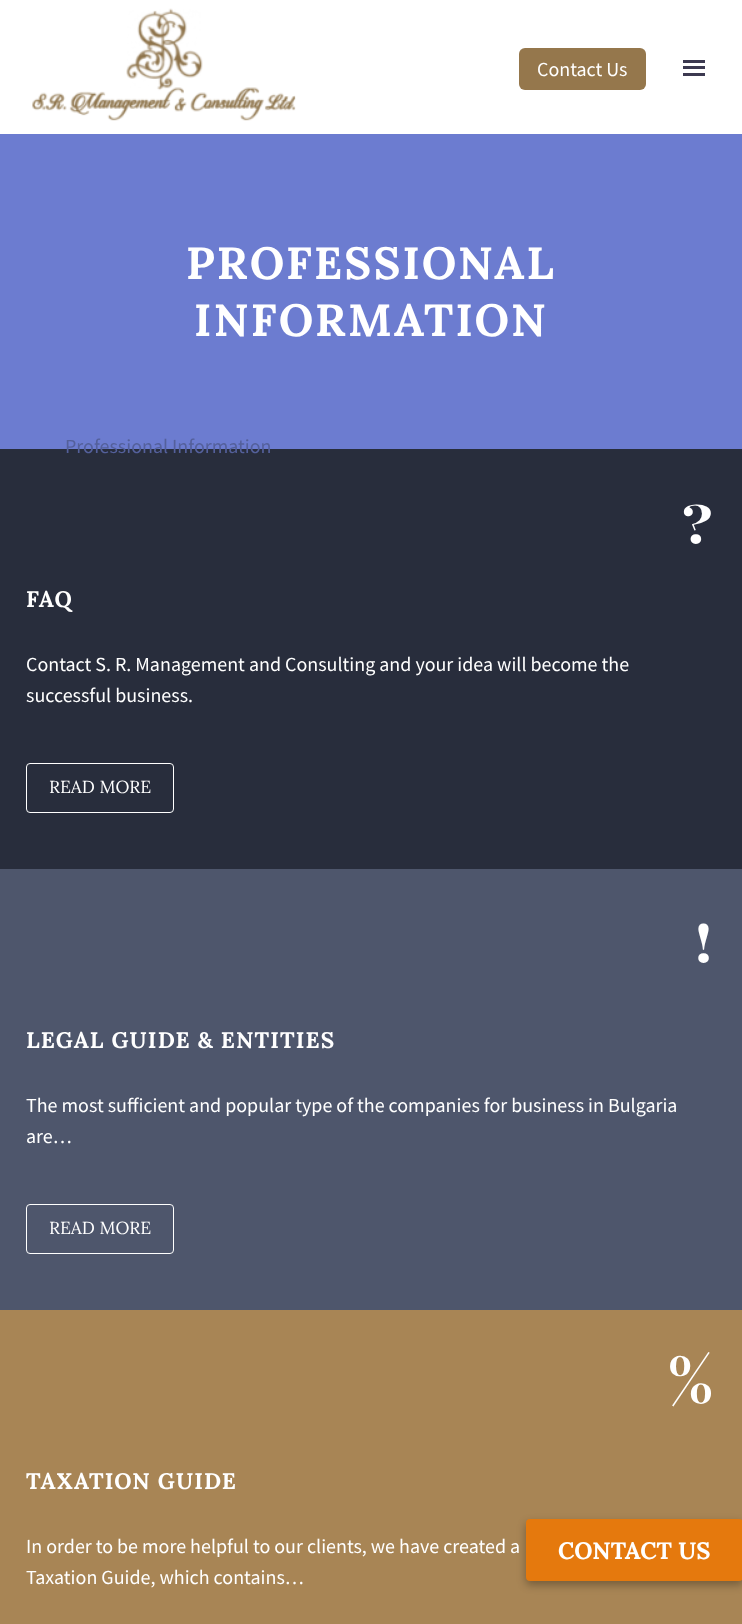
<!DOCTYPE html>
<meta charset="utf-8">
<style>body { margin: 0 } canvas { display: block }</style>
<canvas id="canvas" width="742" height="1624"></canvas>
<script type="module">
  const canvas = document.getElementById("canvas");
  const ctx = canvas.getContext("2d");
  ctx.miterLimit = 4;
  ctx.fontKerning = "normal";
  async function loadImage(src) {
    const img = new Image();
    img.src = src;
    await img.decode();
    return img;
  }

  ctx.fillStyle = "#ffffff";
  ctx.fillRect(0, 0, 742, 1624);
  ctx.drawImage(await loadImage("img1.png"), 32, 8, 264, 113);
  ctx.fillStyle = "#95774c";
  ctx.beginPath();
  ctx.roundRect(519, 48, 127, 42, 6);
  ctx.fill();
  ctx.font = "20px Source Sans Pro";
  ctx.fillStyle = "#ffffff";
  ctx.fillText("Contact Us", 537, 76);
  ctx.fillStyle = "#3c3950";
  ctx.fillRect(683, 60, 22, 3);
  ctx.fillRect(683, 66, 22, 3);
  ctx.fillRect(683, 73, 22, 3);
  ctx.fillStyle = "#6c7cd0";
  ctx.fillRect(0, 134, 742, 315);
  ctx.fillStyle = "#282d3c";
  ctx.fillRect(0, 449, 742, 420);
  ctx.fillStyle = "#54609b";
  ctx.fillText("Professional Information", 65, 453);
  ctx.letterSpacing = "2.25px";
  ctx.font = "bold 45px Lora";
  ctx.fillStyle = "#ffffff";
  ctx.fillText("PROFESSIONAL", 186, 279);
  ctx.fillText("INFORMATION", 194, 336);
  ctx.letterSpacing = "3px";
  ctx.font = "bold 62px Playfair Display SC";
  ctx.fillText("?", 682, 543);
  ctx.letterSpacing = "1.1px";
  ctx.font = "bold 22.5px Lora";
  ctx.fillText("FAQ", 26, 607);
  ctx.letterSpacing = "0px";
  ctx.font = "20px Source Sans Pro";
  ctx.fillText("Contact S. R. Management and Consulting and your idea will become the", 26, 671);
  ctx.fillText("successful business.", 26, 702);
  ctx.beginPath();
  ctx.roundRect(26.5, 763.5, 147, 49, 3.5);
  ctx.strokeStyle = "#ffffff";
  ctx.stroke();
  ctx.font = "17.5px Lora";
  ctx.fillText("READ MORE", 49, 793);
  ctx.fillStyle = "#4e566c";
  ctx.fillRect(0, 869, 742, 441);
  ctx.letterSpacing = "3px";
  ctx.font = "bold 62px Playfair Display SC";
  ctx.fillStyle = "#ffffff";
  ctx.fillText("!", 694, 962);
  ctx.letterSpacing = "1.1px";
  ctx.font = "bold 22.5px Lora";
  ctx.fillText("LEGAL GUIDE & ENTITIES", 26, 1048);
  ctx.letterSpacing = "0px";
  ctx.font = "20px Source Sans Pro";
  ctx.fillText("The most sufficient and popular type of the companies for business in Bulgaria", 26, 1112);
  ctx.fillText("are…", 26, 1143);
  ctx.beginPath();
  ctx.roundRect(26.5, 1204.5, 147, 49, 3.5);
  ctx.stroke();
  ctx.font = "17.5px Lora";
  ctx.fillText("READ MORE", 49, 1234);
  ctx.fillStyle = "#a88555";
  ctx.fillRect(0, 1310, 742, 314);
  ctx.letterSpacing = "3px";
  ctx.font = "bold 62px Playfair Display SC";
  ctx.fillStyle = "#ffffff";
  ctx.fillText("%", 668, 1403);
  ctx.letterSpacing = "1.1px";
  ctx.font = "bold 22.5px Lora";
  ctx.fillText("TAXATION GUIDE", 26, 1489);
  ctx.letterSpacing = "0px";
  ctx.font = "20px Source Sans Pro";
  ctx.fillText("In order to be more helpful to our clients, we have created a", 26, 1553);
  ctx.fillText("Taxation Guide, which contains…", 26, 1584);
  ctx.fillStyle = "rgba(0, 0, 0, 0.3)";
  ctx.filter = "blur(4px)";
  ctx.beginPath();
  ctx.roundRect(526, 1523, 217, 62, 4);
  ctx.fill();
  ctx.filter = "none";
  ctx.fillStyle = "#e5790d";
  ctx.beginPath();
  ctx.roundRect(526, 1519, 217, 62, 4);
  ctx.fill();
  ctx.font = "bold 23.75px Lora";
  ctx.fillStyle = "#ffffff";
  ctx.fillText("CONTACT US", 558, 1559);
</script>
